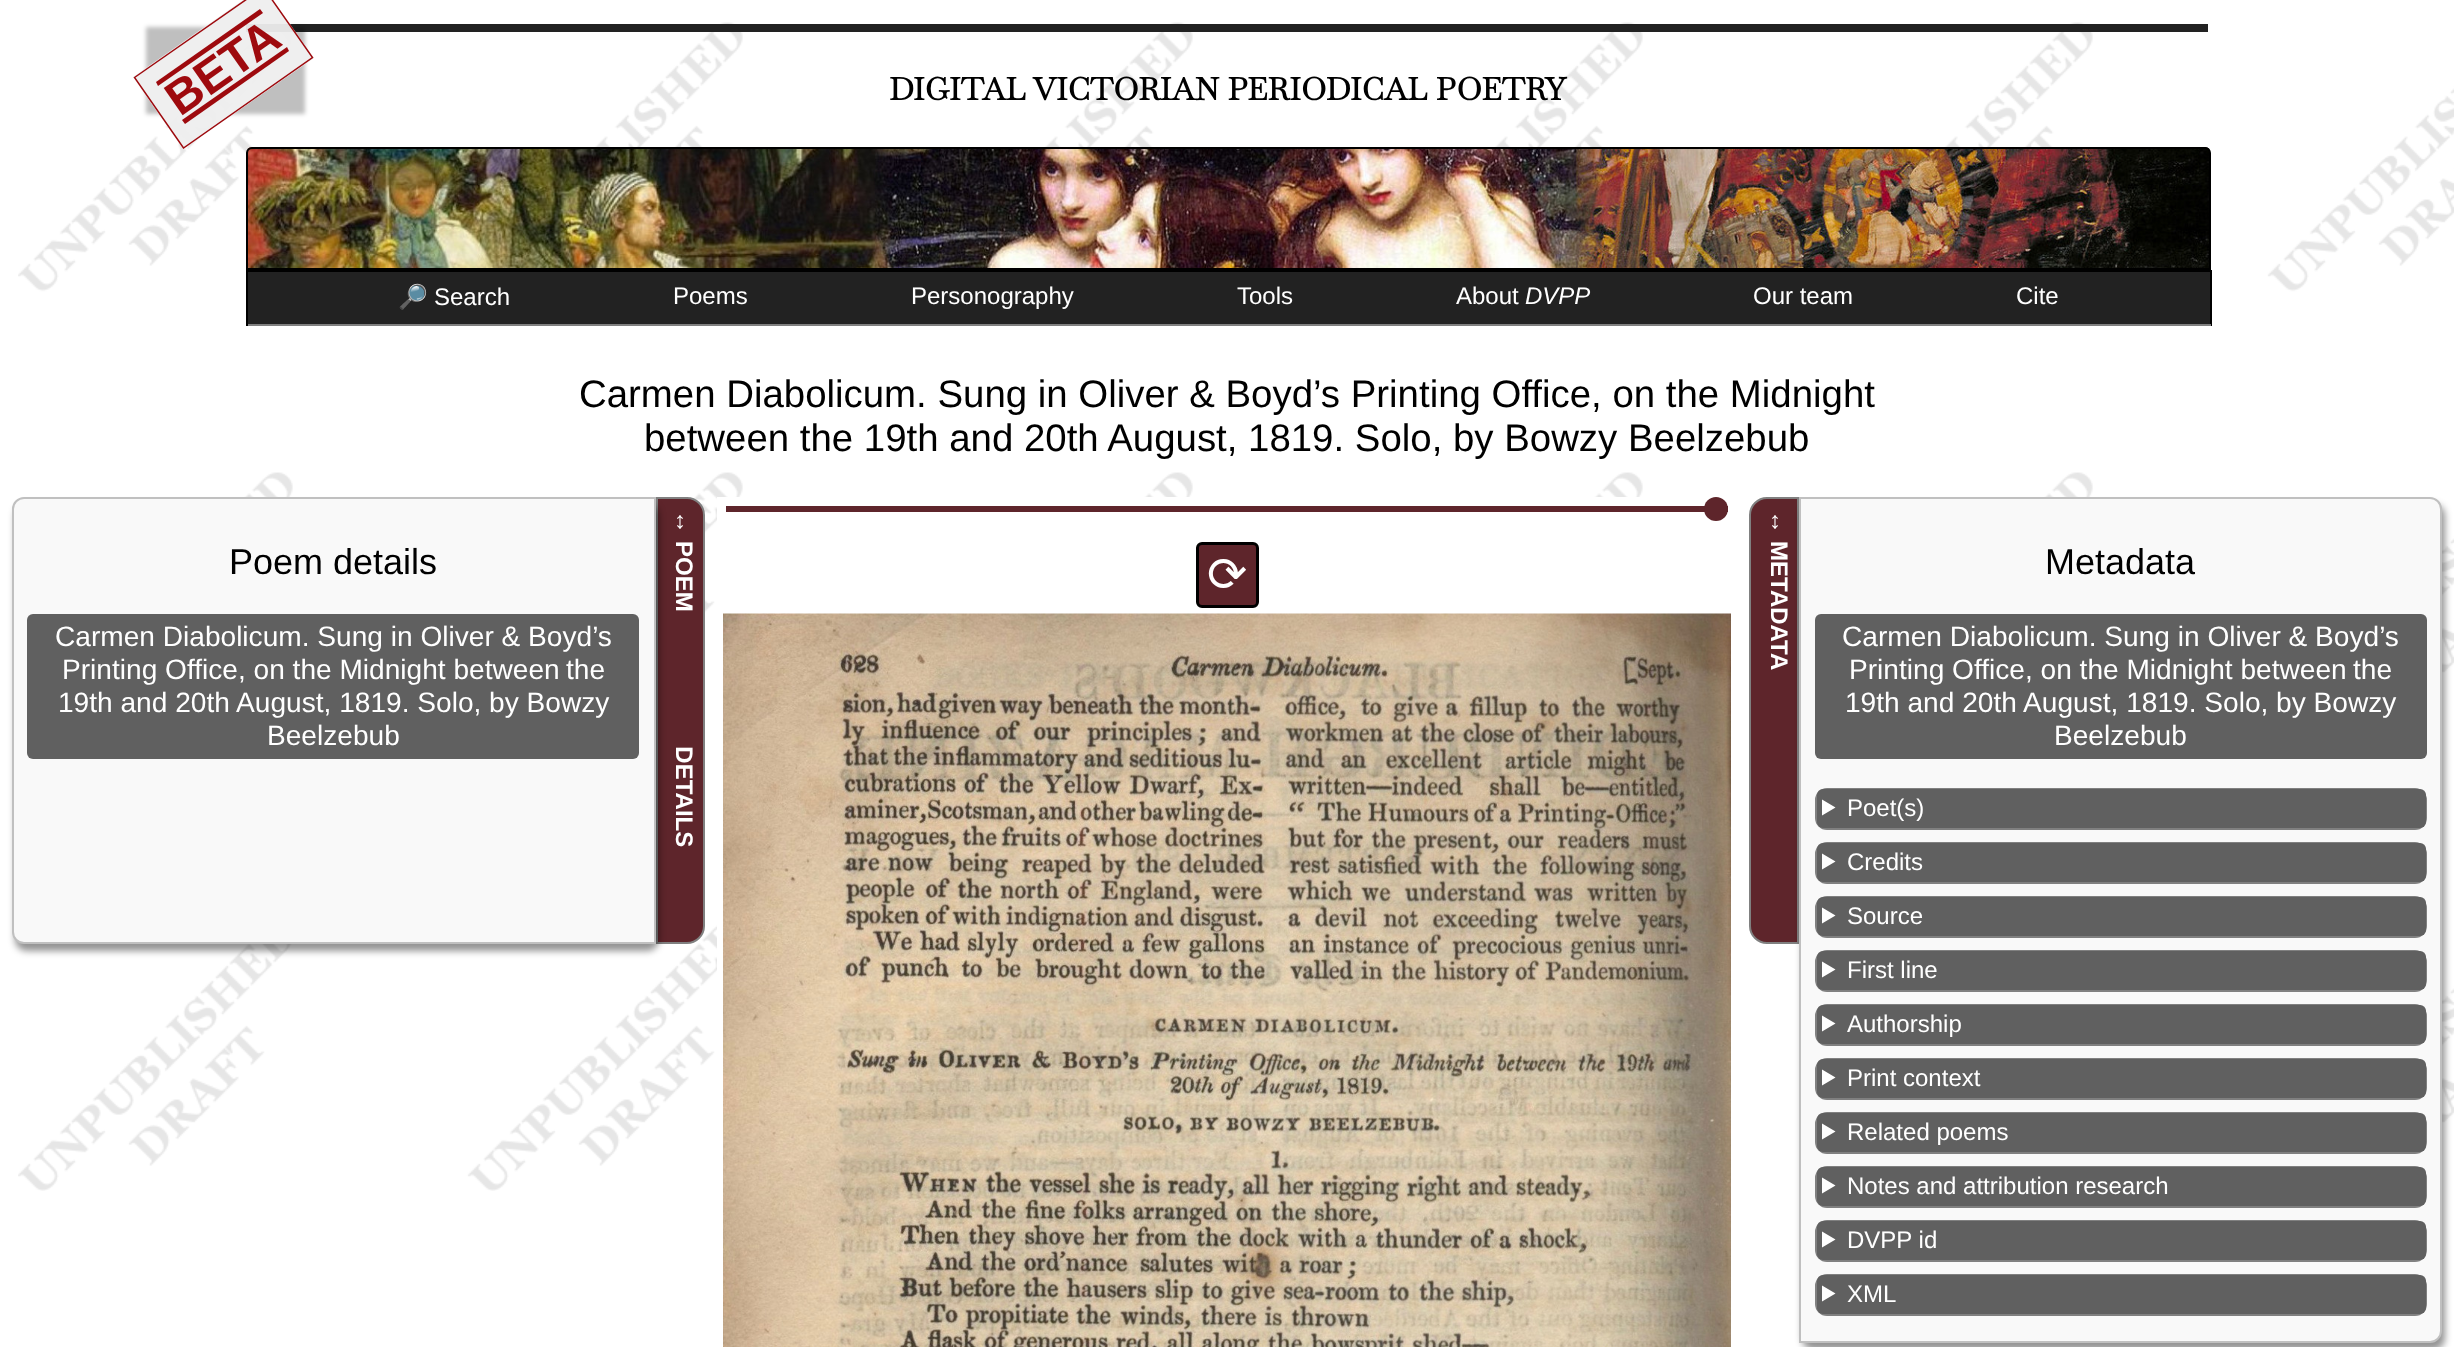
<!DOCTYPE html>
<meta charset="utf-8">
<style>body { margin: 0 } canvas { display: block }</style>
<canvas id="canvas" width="2454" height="1347"></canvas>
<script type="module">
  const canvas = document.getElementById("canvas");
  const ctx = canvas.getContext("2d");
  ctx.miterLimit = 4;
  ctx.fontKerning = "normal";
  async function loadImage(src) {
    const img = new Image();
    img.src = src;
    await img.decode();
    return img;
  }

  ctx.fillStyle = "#ffffff";
  ctx.fillRect(0, 0, 2454, 1347);
  ctx.drawImage(await loadImage("img1.png"), 18, 22, 2436, 1169);
  ctx.fillStyle = "#222222";
  ctx.fillRect(246, 24, 1962, 8);
  ctx.save();
  ctx.beginPath();
  ctx.moveTo(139, 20);
  ctx.lineTo(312, 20);
  ctx.lineTo(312, 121);
  ctx.lineTo(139, 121);
  ctx.closePath();
  ctx.moveTo(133.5, 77.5);
  ctx.lineTo(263.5, -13.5);
  ctx.lineTo(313.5, 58);
  ctx.lineTo(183.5, 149);
  ctx.closePath();
  ctx.clip("evenodd");
  ctx.fillStyle = "rgba(0, 0, 0, 0.25)";
  ctx.filter = "blur(2px)";
  ctx.beginPath();
  ctx.rect(146, 27, 159, 87);
  ctx.fill();
  ctx.filter = "none";
  ctx.restore();
  ctx.drawImage(await loadImage("img2.png"), 247, 147, 1963, 121);
  ctx.beginPath();
  ctx.roundRect(247, 148, 1963, 121, [5, 5, 0, 0]);
  ctx.strokeStyle = "#000000";
  ctx.lineWidth = 2;
  ctx.stroke();
  ctx.fillStyle = "rgba(238, 238, 238, 0.95)";
  ctx.beginPath();
  ctx.moveTo(133, 77);
  ctx.lineTo(263, -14);
  ctx.lineTo(314, 58);
  ctx.lineTo(183, 149);
  ctx.closePath();
  ctx.fill();
  ctx.beginPath();
  ctx.moveTo(134.5, 77.5);
  ctx.lineTo(263.5, -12.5);
  ctx.lineTo(312.5, 57.5);
  ctx.lineTo(183.5, 148);
  ctx.closePath();
  ctx.strokeStyle = "#9e0a0e";
  ctx.lineWidth = 1.5;
  ctx.stroke();
  ctx.fillStyle = "#9e0a0e";
  ctx.beginPath();
  ctx.moveTo(182, 120);
  ctx.lineTo(287, 47);
  ctx.lineTo(289, 51);
  ctx.lineTo(185, 124);
  ctx.closePath();
  ctx.fill();
  ctx.beginPath();
  ctx.moveTo(156, 82);
  ctx.lineTo(260, 9);
  ctx.lineTo(263, 13);
  ctx.lineTo(158, 86);
  ctx.closePath();
  ctx.fill();
  ctx.font = "bold 48px Liberation Sans";
  ctx.save();
  ctx.translate(180, 117);
  ctx.rotate(-35 * Math.PI / 180);
  ctx.fillText("BETA", 0, 0);
  ctx.restore();
  ctx.font = "bold 31.2px Baskervville";
  ctx.fillStyle = "#000000";
  ctx.fillText("DIGITAL VICTORIAN PERIODICAL POETRY", 889, 100);
  ctx.fillStyle = "#222222";
  ctx.fillRect(248, 272, 1962, 52);
  ctx.fillStyle = "#000000";
  ctx.fillRect(246, 270, 1965, 2);
  ctx.fillRect(2210, 270, 2, 56);
  ctx.fillStyle = "#808080";
  ctx.fillRect(246, 324, 1965, 2);
  ctx.fillStyle = "#000000";
  ctx.fillRect(246, 270, 2, 56);
  ctx.font = "24px Noto Color Emoji";
  ctx.fillStyle = "#ffffff";
  ctx.fillText("🔎", 398, 305);
  ctx.font = "24px Liberation Sans";
  ctx.fillText("Search", 434, 305);
  ctx.fillText("Poems", 673, 304);
  ctx.fillText("Personography", 911, 304);
  ctx.fillText("Tools", 1237, 304);
  ctx.fillText("About", 1456, 304);
  ctx.font = "italic 24px Liberation Sans";
  ctx.fillText("DVPP", 1525, 304);
  ctx.font = "24px Liberation Sans";
  ctx.fillText("Our team", 1753, 304);
  ctx.fillText("Cite", 2016, 304);
  ctx.font = "38.4px Liberation Sans";
  ctx.fillStyle = "#000000";
  ctx.fillText("Carmen Diabolicum. Sung in Oliver & Boyd’s Printing Office, on the Midnight", 579, 407);
  ctx.fillText("between the 19th and 20th August, 1819. Solo, by Bowzy Beelzebub", 644, 451);
  ctx.fillStyle = "#5e252b";
  ctx.beginPath();
  ctx.roundRect(657, 498, 47, 445, [0, 17, 17, 0]);
  ctx.fill();
  ctx.strokeStyle = "#808080";
  ctx.lineWidth = 2;
  ctx.stroke();
  ctx.fillStyle = "rgba(0, 0, 0, 0.42)";
  ctx.filter = "blur(3.5px)";
  ctx.beginPath();
  ctx.roundRect(15, 504, 644, 447, 12);
  ctx.fill();
  ctx.filter = "none";
  ctx.fillStyle = "#f9f9f9";
  ctx.beginPath();
  ctx.roundRect(13, 498, 642, 445, [11, 0, 0, 11]);
  ctx.fill();
  ctx.strokeStyle = "#c0c0c0";
  ctx.stroke();
  ctx.font = "36px Liberation Sans";
  ctx.fillStyle = "#000000";
  ctx.fillText("Poem details", 229, 574);
  ctx.fillStyle = "#606060";
  ctx.beginPath();
  ctx.roundRect(27, 614, 612, 145, 6);
  ctx.fill();
  ctx.font = "28.1px Liberation Sans";
  ctx.fillStyle = "#ffffff";
  ctx.fillText("Carmen Diabolicum. Sung in Oliver & Boyd’s", 55, 646);
  ctx.fillText("Printing Office, on the Midnight between", 62, 679);
  ctx.fillText("the", 566, 679);
  ctx.fillText("19th and 20th August, 1819. Solo, by Bowzy", 58, 712);
  ctx.fillText("Beelzebub", 267, 745);
  ctx.font = "bold 24px Liberation Sans";
  ctx.save();
  ctx.translate(676, 510);
  ctx.rotate(90 * Math.PI / 180);
  ctx.fillText("↔", 0, 0);
  ctx.restore();
  ctx.wordSpacing = "128px";
  ctx.save();
  ctx.translate(676, 541);
  ctx.rotate(90 * Math.PI / 180);
  ctx.fillText("POEM DETAILS", 0, 0);
  ctx.restore();
  ctx.fillRect(717, 497, 926, 694);
  ctx.fillStyle = "#5e252b";
  ctx.fillRect(726, 506, 1002, 6);
  ctx.beginPath();
  ctx.arc(1716, 509, 12, 0, Math.PI * 2);
  ctx.fill();
  ctx.beginPath();
  ctx.roundRect(1197.5, 543.5, 60, 63, 4.5);
  ctx.fill();
  ctx.strokeStyle = "#000000";
  ctx.lineWidth = 3;
  ctx.stroke();
  ctx.wordSpacing = "0px";
  ctx.font = "48px DejaVu Sans";
  ctx.fillStyle = "#ffffff";
  ctx.fillText("⟳", 1207, 591);
  ctx.drawImage(await loadImage("img3.png"), 723, 613, 1008, 734);
  ctx.fillStyle = "#5e252b";
  ctx.beginPath();
  ctx.roundRect(1750, 498, 48, 445, [17, 0, 0, 17]);
  ctx.fill();
  ctx.strokeStyle = "#808080";
  ctx.lineWidth = 2;
  ctx.stroke();
  ctx.font = "bold 24px Liberation Sans";
  ctx.fillStyle = "#ffffff";
  ctx.save();
  ctx.translate(1771, 510);
  ctx.rotate(90 * Math.PI / 180);
  ctx.fillText("↔", 0, 0);
  ctx.restore();
  ctx.save();
  ctx.translate(1771, 541);
  ctx.rotate(90 * Math.PI / 180);
  ctx.fillText("METADATA", 0, 0);
  ctx.restore();
  ctx.fillStyle = "rgba(0, 0, 0, 0.42)";
  ctx.filter = "blur(3.5px)";
  ctx.beginPath();
  ctx.roundRect(1802, 504, 643, 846, 12);
  ctx.fill();
  ctx.filter = "none";
  ctx.fillStyle = "#f9f9f9";
  ctx.beginPath();
  ctx.roundRect(1800, 498, 641, 844, [0, 11, 11, 0]);
  ctx.fill();
  ctx.strokeStyle = "#c0c0c0";
  ctx.stroke();
  ctx.font = "36px Liberation Sans";
  ctx.fillStyle = "#000000";
  ctx.fillText("Metadata", 2045, 574);
  ctx.fillStyle = "#606060";
  ctx.beginPath();
  ctx.roundRect(1815, 614, 612, 145, 6);
  ctx.fill();
  ctx.font = "28.1px Liberation Sans";
  ctx.fillStyle = "#ffffff";
  ctx.fillText("Carmen Diabolicum. Sung in Oliver & Boyd’s", 1842, 646);
  ctx.fillText("Printing Office, on the Midnight between", 1849, 679);
  ctx.fillText("the", 2353, 679);
  ctx.fillText("19th and 20th August, 1819. Solo, by Bowzy", 1845, 712);
  ctx.fillText("Beelzebub", 2054, 745);
  ctx.beginPath();
  ctx.roundRect(1816, 789, 610, 40, 11);
  ctx.strokeStyle = "#808080";
  ctx.stroke();
  ctx.fillStyle = "#606060";
  ctx.beginPath();
  ctx.roundRect(1817, 789, 609, 39, 6);
  ctx.fill();
  ctx.fillStyle = "#ffffff";
  ctx.beginPath();
  ctx.moveTo(1822, 799.5);
  ctx.lineTo(1835.5, 807.5);
  ctx.lineTo(1822, 815.5);
  ctx.closePath();
  ctx.fill();
  ctx.font = "24px Liberation Sans";
  ctx.fillText("Poet(s)", 1847, 816);
  ctx.beginPath();
  ctx.roundRect(1816, 843, 610, 40, 11);
  ctx.stroke();
  ctx.fillStyle = "#606060";
  ctx.beginPath();
  ctx.roundRect(1817, 843, 609, 39, 6);
  ctx.fill();
  ctx.fillStyle = "#ffffff";
  ctx.beginPath();
  ctx.moveTo(1822, 853.5);
  ctx.lineTo(1835.5, 861.5);
  ctx.lineTo(1822, 869.5);
  ctx.closePath();
  ctx.fill();
  ctx.fillText("Credits", 1847, 870);
  ctx.beginPath();
  ctx.roundRect(1816, 897, 610, 40, 11);
  ctx.stroke();
  ctx.fillStyle = "#606060";
  ctx.beginPath();
  ctx.roundRect(1817, 897, 609, 39, 6);
  ctx.fill();
  ctx.fillStyle = "#ffffff";
  ctx.beginPath();
  ctx.moveTo(1822, 907.5);
  ctx.lineTo(1835.5, 915.5);
  ctx.lineTo(1822, 923.5);
  ctx.closePath();
  ctx.fill();
  ctx.fillText("Source", 1847, 924);
  ctx.beginPath();
  ctx.roundRect(1816, 951, 610, 40, 11);
  ctx.stroke();
  ctx.fillStyle = "#606060";
  ctx.beginPath();
  ctx.roundRect(1817, 951, 609, 39, 6);
  ctx.fill();
  ctx.fillStyle = "#ffffff";
  ctx.beginPath();
  ctx.moveTo(1822, 961.5);
  ctx.lineTo(1835.5, 969.5);
  ctx.lineTo(1822, 977.5);
  ctx.closePath();
  ctx.fill();
  ctx.fillText("First line", 1847, 978);
  ctx.beginPath();
  ctx.roundRect(1816, 1005, 610, 40, 11);
  ctx.stroke();
  ctx.fillStyle = "#606060";
  ctx.beginPath();
  ctx.roundRect(1817, 1005, 609, 39, 6);
  ctx.fill();
  ctx.fillStyle = "#ffffff";
  ctx.beginPath();
  ctx.moveTo(1822, 1015.5);
  ctx.lineTo(1835.5, 1023.5);
  ctx.lineTo(1822, 1031.5);
  ctx.closePath();
  ctx.fill();
  ctx.fillText("Authorship", 1847, 1032);
  ctx.beginPath();
  ctx.roundRect(1816, 1059, 610, 40, 11);
  ctx.stroke();
  ctx.fillStyle = "#606060";
  ctx.beginPath();
  ctx.roundRect(1817, 1059, 609, 39, 6);
  ctx.fill();
  ctx.fillStyle = "#ffffff";
  ctx.beginPath();
  ctx.moveTo(1822, 1069.5);
  ctx.lineTo(1835.5, 1077.5);
  ctx.lineTo(1822, 1085.5);
  ctx.closePath();
  ctx.fill();
  ctx.fillText("Print context", 1847, 1086);
  ctx.beginPath();
  ctx.roundRect(1816, 1113, 610, 40, 11);
  ctx.stroke();
  ctx.fillStyle = "#606060";
  ctx.beginPath();
  ctx.roundRect(1817, 1113, 609, 39, 6);
  ctx.fill();
  ctx.fillStyle = "#ffffff";
  ctx.beginPath();
  ctx.moveTo(1822, 1123.5);
  ctx.lineTo(1835.5, 1131.5);
  ctx.lineTo(1822, 1139.5);
  ctx.closePath();
  ctx.fill();
  ctx.fillText("Related poems", 1847, 1140);
  ctx.beginPath();
  ctx.roundRect(1816, 1167, 610, 40, 11);
  ctx.stroke();
  ctx.fillStyle = "#606060";
  ctx.beginPath();
  ctx.roundRect(1817, 1167, 609, 39, 6);
  ctx.fill();
  ctx.fillStyle = "#ffffff";
  ctx.beginPath();
  ctx.moveTo(1822, 1177.5);
  ctx.lineTo(1835.5, 1185.5);
  ctx.lineTo(1822, 1193.5);
  ctx.closePath();
  ctx.fill();
  ctx.fillText("Notes and attribution research", 1847, 1194);
  ctx.beginPath();
  ctx.roundRect(1816, 1221, 610, 40, 11);
  ctx.stroke();
  ctx.fillStyle = "#606060";
  ctx.beginPath();
  ctx.roundRect(1817, 1221, 609, 39, 6);
  ctx.fill();
  ctx.fillStyle = "#ffffff";
  ctx.beginPath();
  ctx.moveTo(1822, 1231.5);
  ctx.lineTo(1835.5, 1239.5);
  ctx.lineTo(1822, 1247.5);
  ctx.closePath();
  ctx.fill();
  ctx.fillText("DVPP id", 1847, 1248);
  ctx.beginPath();
  ctx.roundRect(1816, 1275, 610, 40, 11);
  ctx.stroke();
  ctx.fillStyle = "#606060";
  ctx.beginPath();
  ctx.roundRect(1817, 1275, 609, 39, 6);
  ctx.fill();
  ctx.fillStyle = "#ffffff";
  ctx.beginPath();
  ctx.moveTo(1822, 1285.5);
  ctx.lineTo(1835.5, 1293.5);
  ctx.lineTo(1822, 1301.5);
  ctx.closePath();
  ctx.fill();
  ctx.fillText("XML", 1847, 1302);
</script>
